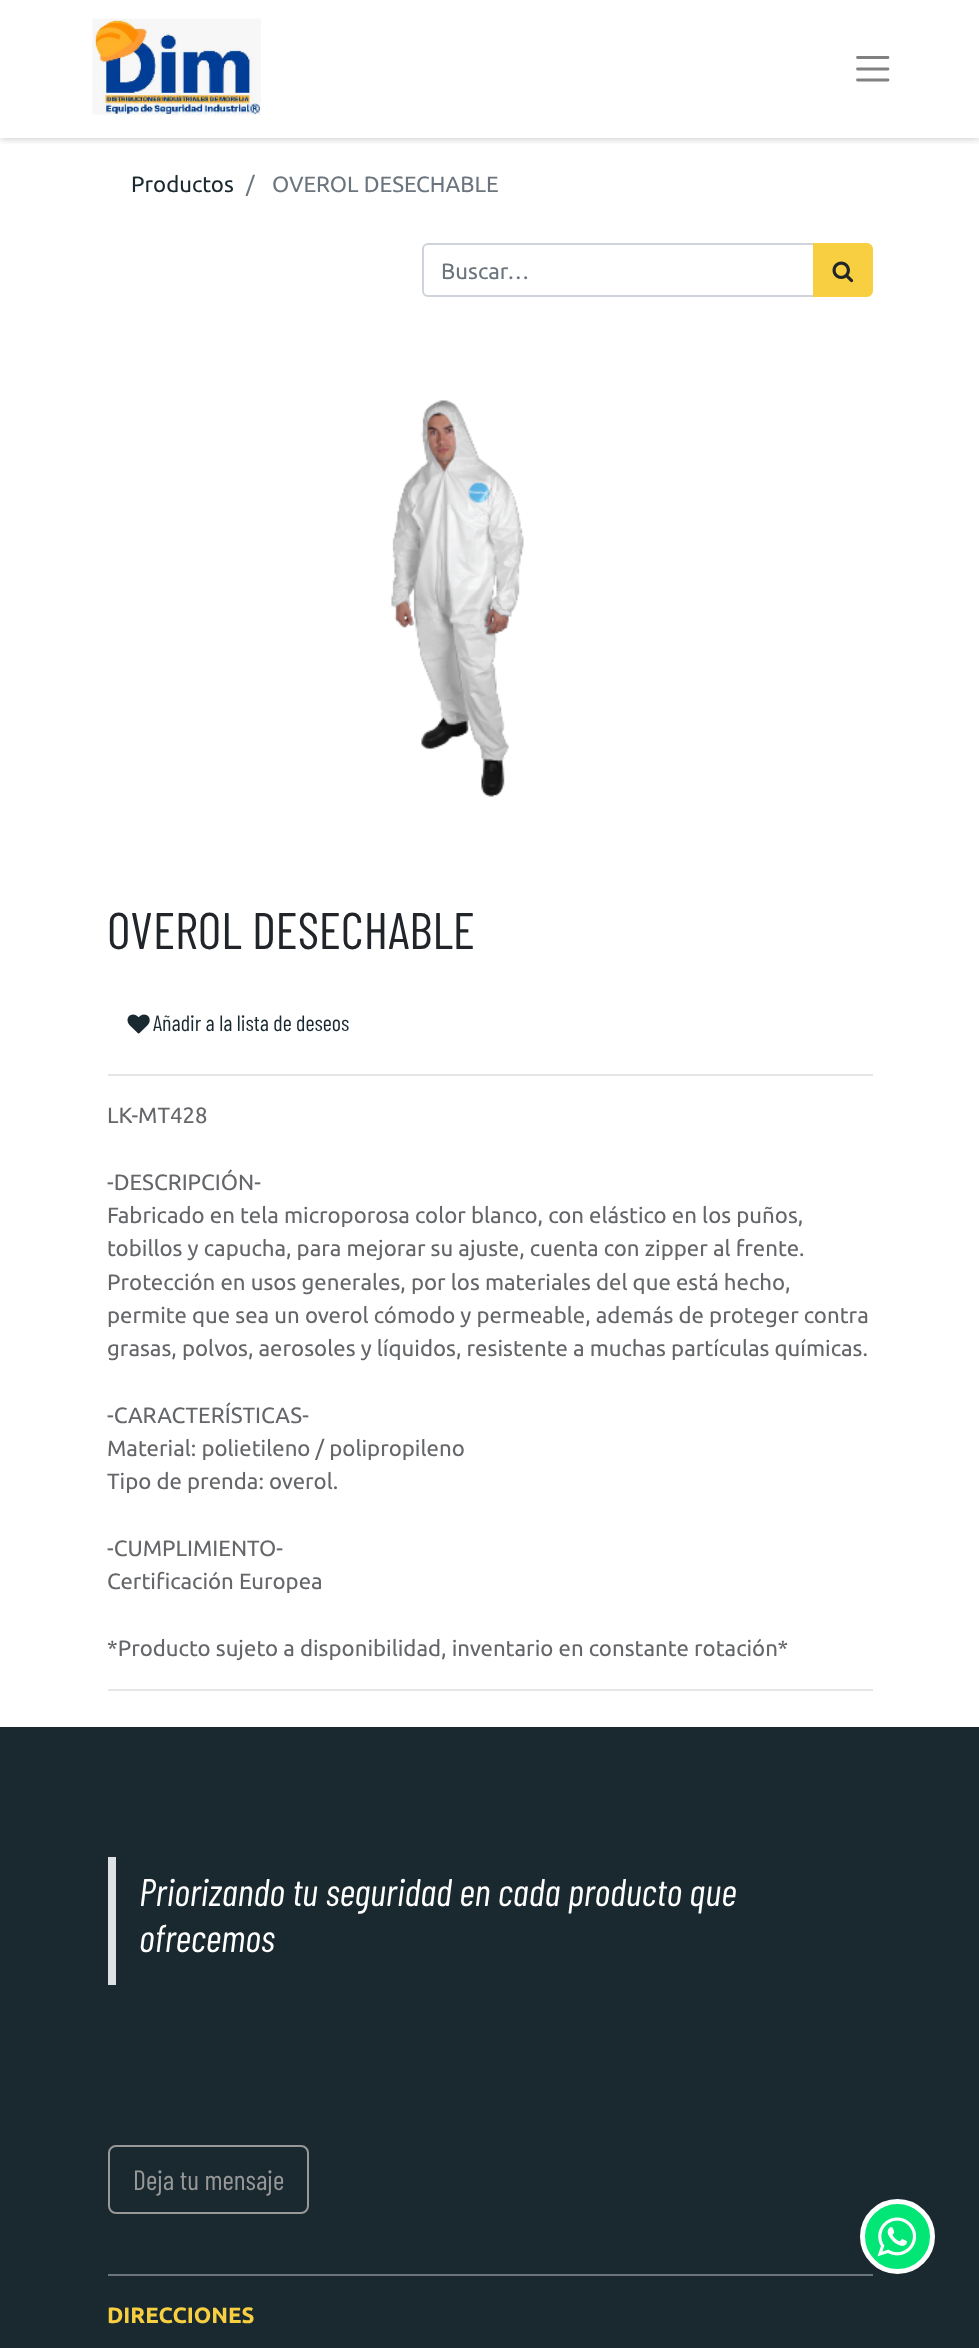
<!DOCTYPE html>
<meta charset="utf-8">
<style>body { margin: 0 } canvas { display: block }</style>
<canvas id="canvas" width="979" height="2348"></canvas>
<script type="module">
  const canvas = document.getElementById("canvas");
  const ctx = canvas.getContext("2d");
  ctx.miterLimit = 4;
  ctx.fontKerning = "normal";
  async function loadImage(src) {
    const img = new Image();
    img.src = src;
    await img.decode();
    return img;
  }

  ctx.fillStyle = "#ffffff";
  ctx.fillRect(0, 0, 979, 2348);
  ctx.save();
  ctx.beginPath();
  ctx.rect(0, 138, 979, 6);
  ctx.clip();
  ctx.fillStyle = "rgba(0, 0, 0, 0.25)";
  ctx.filter = "blur(4px)";
  ctx.beginPath();
  ctx.rect(0, 0, 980, 138);
  ctx.fill();
  ctx.filter = "none";
  ctx.restore();
  ctx.drawImage(await loadImage("img1.png"), 92, 18, 169, 97);
  ctx.beginPath();
  ctx.moveTo(857.5, 57.5);
  ctx.lineTo(888, 57.5);
  ctx.moveTo(857.5, 69);
  ctx.lineTo(888, 69);
  ctx.moveTo(857.5, 80);
  ctx.lineTo(888, 80);
  ctx.strokeStyle = "#808080";
  ctx.lineWidth = 2.8;
  ctx.lineCap = "round";
  ctx.stroke();
  ctx.font = "22.2px Ubuntu";
  ctx.fillStyle = "#1a2930";
  ctx.fillText("Productos", 131, 192);
  ctx.fillStyle = "#6c757d";
  ctx.fillText("/", 246, 192);
  ctx.fillText("OVEROL DESECHABLE", 272, 192);
  ctx.beginPath();
  ctx.roundRect(423, 244, 391, 52, [5, 0, 0, 5]);
  ctx.strokeStyle = "#ced4da";
  ctx.lineWidth = 2;
  ctx.stroke();
  ctx.fillText("Buscar…", 441, 279);
  ctx.fillStyle = "#f7cf41";
  ctx.beginPath();
  ctx.roundRect(814, 244, 58, 52, [0, 5, 5, 0]);
  ctx.fill();
  ctx.strokeStyle = "#f7cf41";
  ctx.stroke();
  ctx.drawImage(await loadImage("img2.png"), 832, 261, 22, 22);
  ctx.drawImage(await loadImage("img3.png"), 391, 400, 133, 397);
  ctx.font = "51.5px Barlow Condensed";
  ctx.fillStyle = "#212529";
  ctx.fillText("OVEROL DESECHABLE", 107, 949);
  ctx.drawImage(await loadImage("img4.png"), 127, 1014, 23, 20);
  ctx.font = "22.2px Barlow Condensed";
  ctx.fillStyle = "#1a2930";
  ctx.fillText("Añadir a la lista de deseos", 153, 1031);
  ctx.fillStyle = "#e6e6e6";
  ctx.fillRect(108, 1074, 765, 2);
  ctx.font = "22.2px Ubuntu";
  ctx.fillStyle = "#646669";
  ctx.fillText("LK-MT428", 107, 1123);
  ctx.fillText("-DESCRIPCIÓN-", 107, 1190);
  ctx.fillText("Fabricado en tela microporosa color blanco, con elástico en los puños,", 107, 1223);
  ctx.fillText("tobillos y capucha, para mejorar su ajuste, cuenta con zipper al frente.", 107, 1256);
  ctx.fillText("Protección en usos generales, por los materiales del que está hecho,", 107, 1290);
  ctx.fillText("permite que sea un overol cómodo y permeable, además de proteger contra", 107, 1323);
  ctx.fillText("grasas, polvos, aerosoles y líquidos, resistente a muchas partículas químicas.", 107, 1356);
  ctx.fillText("-CARACTERÍSTICAS-", 107, 1423);
  ctx.fillText("Material: polietileno / polipropileno", 107, 1456);
  ctx.fillText("Tipo de prenda: overol.", 107, 1489);
  ctx.fillText("-CUMPLIMIENTO-", 107, 1556);
  ctx.fillText("Certificación Europea", 107, 1589);
  ctx.fillText("*Producto sujeto a disponibilidad, inventario en constante rotación*", 107, 1656);
  ctx.fillStyle = "#e6e6e6";
  ctx.fillRect(108, 1689, 765, 2);
  ctx.fillStyle = "#1a2930";
  ctx.fillRect(0, 1727, 979, 621);
  ctx.fillStyle = "#dee2e6";
  ctx.fillRect(108, 1857, 8, 128);
  ctx.font = "italic 38.5px Barlow Condensed";
  ctx.fillStyle = "#ffffff";
  ctx.fillText("Priorizando tu seguridad en cada producto que", 139, 1906);
  ctx.fillText("ofrecemos", 139, 1952);
  ctx.beginPath();
  ctx.roundRect(109, 2146, 199, 67, 7);
  ctx.strokeStyle = "#989898";
  ctx.stroke();
  ctx.font = "27.75px Barlow Condensed";
  ctx.fillStyle = "#989898";
  ctx.fillText("Deja tu mensaje", 133, 2190);
  ctx.fillStyle = "#6c757d";
  ctx.fillRect(108, 2274, 765, 2);
  ctx.font = "bold 22.2px Ubuntu";
  ctx.fillStyle = "#f7cf41";
  ctx.fillText("DIRECCIONES", 107, 2323);
  ctx.fillStyle = "#01e675";
  ctx.beginPath();
  ctx.arc(897.5, 2236.5, 35, 0, Math.PI * 2);
  ctx.fill();
  ctx.strokeStyle = "#ffffff";
  ctx.lineWidth = 5;
  ctx.stroke();
  ctx.drawImage(await loadImage("img5.png"), 877, 2217, 40, 40);
</script>
